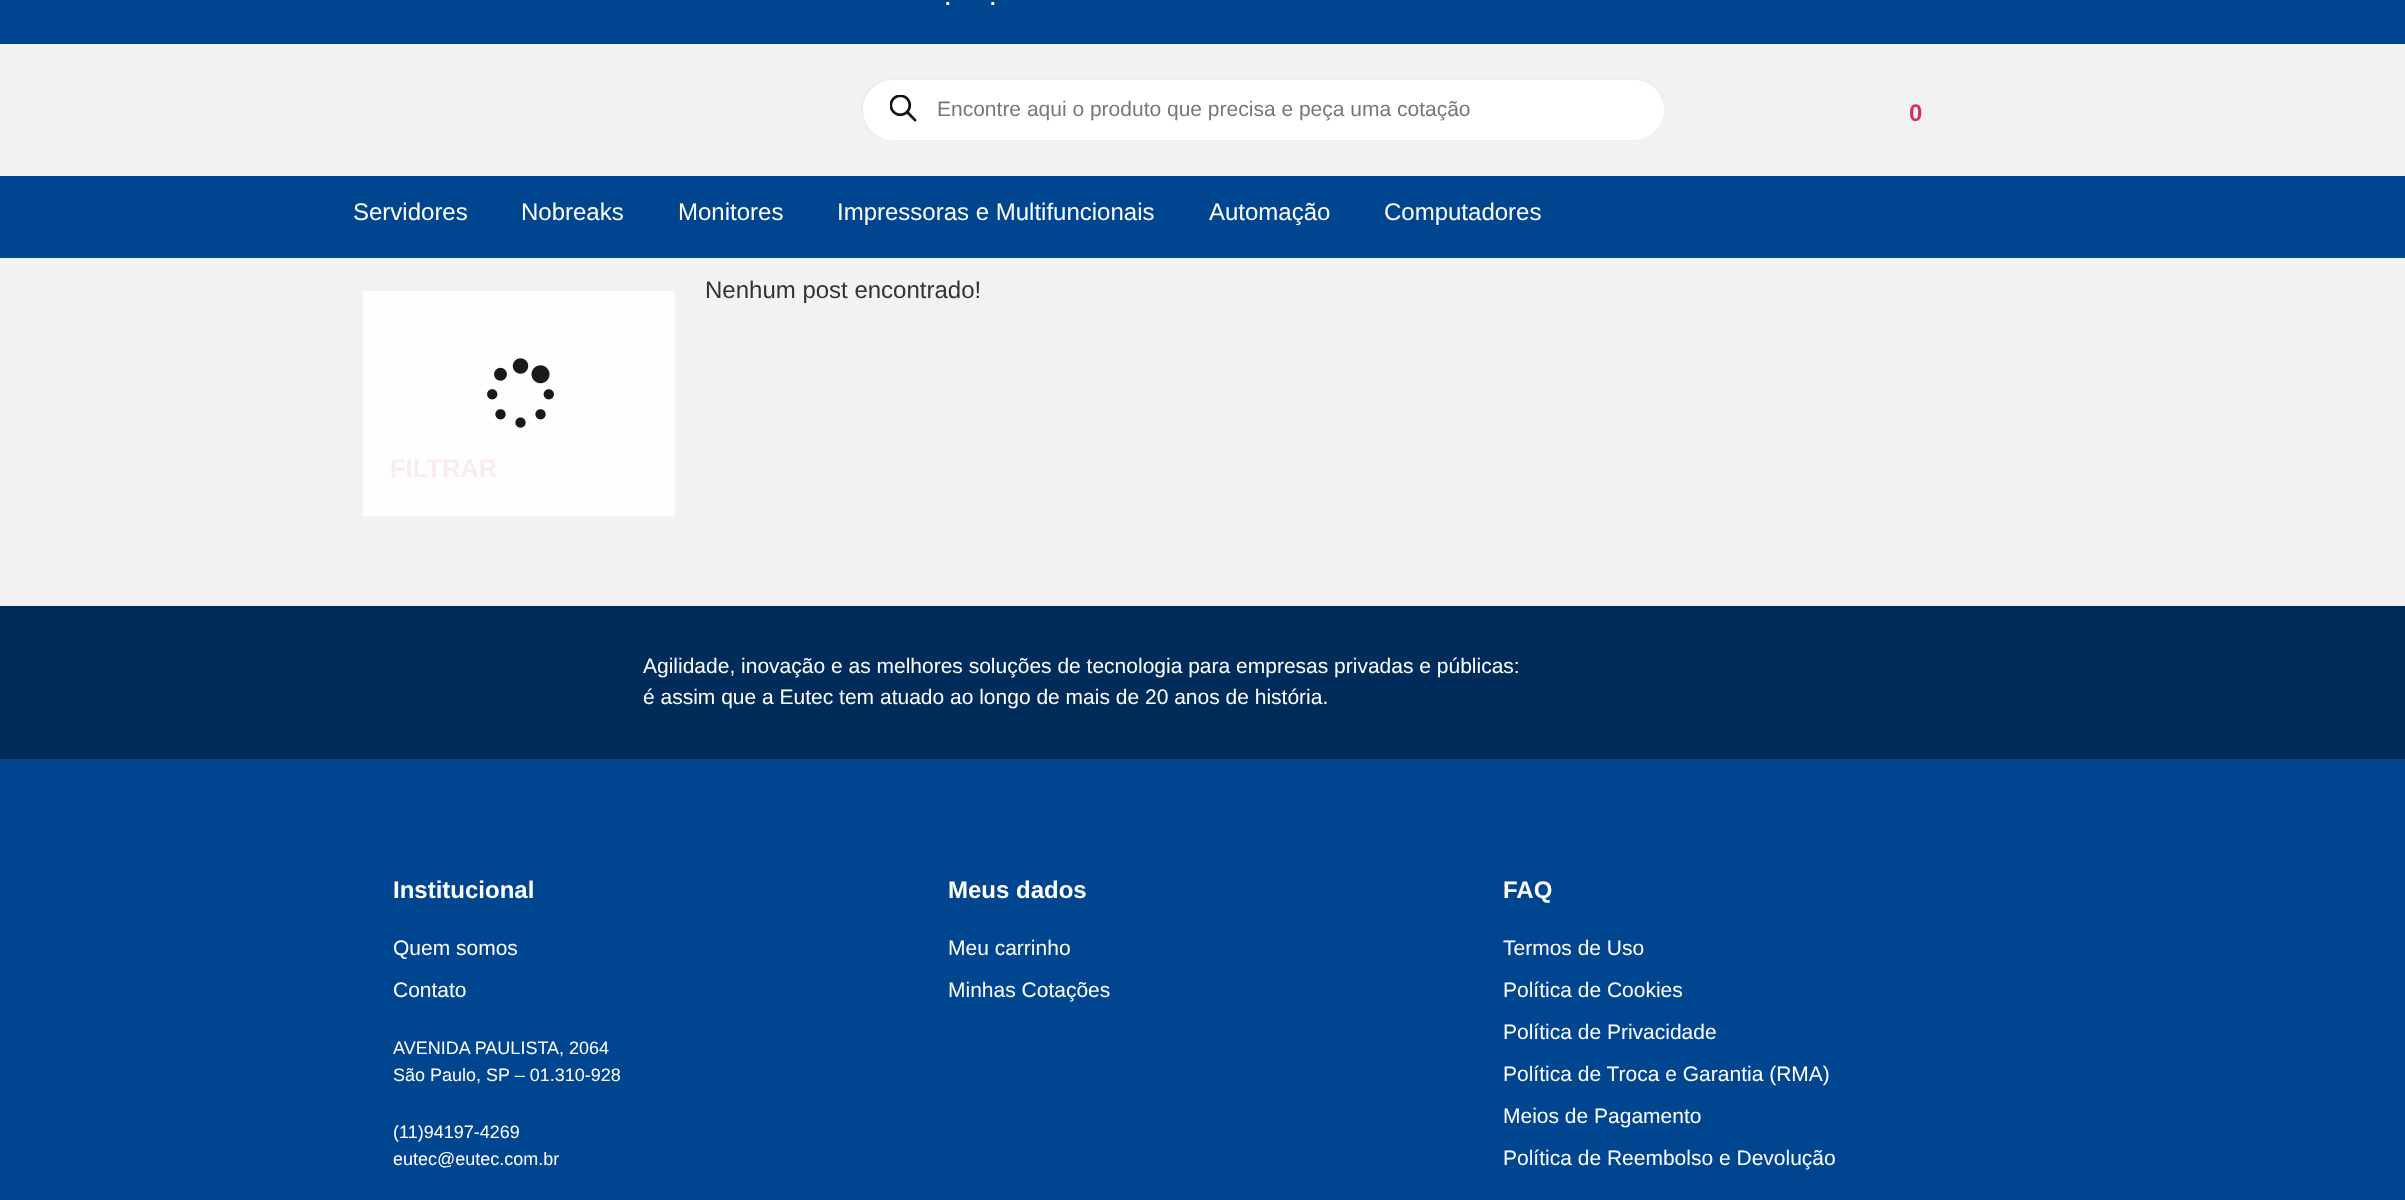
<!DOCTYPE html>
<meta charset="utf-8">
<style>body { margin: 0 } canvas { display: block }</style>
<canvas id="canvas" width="2405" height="1200"></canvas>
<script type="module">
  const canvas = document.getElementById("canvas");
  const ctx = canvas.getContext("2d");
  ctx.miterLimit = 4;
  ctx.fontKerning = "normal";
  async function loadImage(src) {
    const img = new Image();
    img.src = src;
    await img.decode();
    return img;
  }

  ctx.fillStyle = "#f2f2f2";
  ctx.fillRect(0, 0, 2405, 1200);
  ctx.fillStyle = "#fefefe";
  ctx.fillRect(363, 291, 312, 225);
  ctx.fillStyle = "#004590";
  ctx.fillRect(0, 0, 2405, 44);
  ctx.font = "bold 20px Liberation Sans";
  ctx.fillStyle = "#ffffff";
  ctx.fillText(".", 945, 5);
  ctx.fillText(".", 990, 5);
  ctx.beginPath();
  ctx.roundRect(862, 79, 802, 61, 30.5);
  ctx.strokeStyle = "#eeeeee";
  ctx.lineWidth = 2;
  ctx.stroke();
  ctx.beginPath();
  ctx.roundRect(863, 80, 801, 60, 30);
  ctx.fill();
  ctx.drawImage(await loadImage("img1.png"), 890, 95, 27, 27);
  ctx.font = "21px Liberation Sans";
  ctx.fillStyle = "#777777";
  ctx.fillText("Encontre aqui o produto que precisa e peça uma cotação", 937, 116);
  ctx.strokeStyle = "#efefef";
  ctx.strokeRect(1858, 72, 84, 76);
  ctx.font = "bold 24px Liberation Sans";
  ctx.fillStyle = "#cc3366";
  ctx.fillText("0", 1909, 121);
  ctx.fillStyle = "#004590";
  ctx.fillRect(0, 176, 2405, 82);
  ctx.font = "24px Liberation Sans";
  ctx.fillStyle = "#ffffff";
  ctx.fillText("Servidores", 353, 220);
  ctx.fillText("Nobreaks", 521, 220);
  ctx.fillText("Monitores", 678, 220);
  ctx.fillText("Impressoras e Multifuncionais", 837, 220);
  ctx.fillText("Automação", 1209, 220);
  ctx.fillText("Computadores", 1384, 220);
  ctx.fillStyle = "#333333";
  ctx.fillText("Nenhum post encontrado!", 705, 298);
  ctx.drawImage(await loadImage("img2.png"), 487, 358, 67, 70);
  ctx.font = "bold 25.5px Liberation Sans";
  ctx.fillStyle = "#faebf0";
  ctx.fillText("FILTRAR", 390, 477);
  ctx.fillStyle = "#002c5c";
  ctx.fillRect(0, 606, 2405, 153);
  ctx.font = "21px Liberation Sans";
  ctx.fillStyle = "#ffffff";
  ctx.fillText("Agilidade, inovação e as melhores soluções de tecnologia para empresas privadas e públicas:", 643, 673);
  ctx.fillText("é assim que a Eutec tem atuado ao longo de mais de 20 anos de história.", 643, 704);
  ctx.fillStyle = "#004590";
  ctx.fillRect(0, 759, 2405, 441);
  ctx.font = "bold 24px Liberation Sans";
  ctx.fillStyle = "#ffffff";
  ctx.fillText("Institucional", 393, 898);
  ctx.font = "21px Liberation Sans";
  ctx.fillText("Quem somos", 393, 955);
  ctx.fillText("Contato", 393, 997);
  ctx.font = "18px Liberation Sans";
  ctx.fillText("AVENIDA PAULISTA, 2064", 393, 1054);
  ctx.fillText("São Paulo, SP – 01.310-928", 393, 1081);
  ctx.fillText("(11)94197-4269", 393, 1138);
  ctx.fillText("eutec@eutec.com.br", 393, 1165);
  ctx.font = "bold 24px Liberation Sans";
  ctx.fillText("Meus dados", 948, 898);
  ctx.font = "21px Liberation Sans";
  ctx.fillText("Meu carrinho", 948, 955);
  ctx.fillText("Minhas Cotações", 948, 997);
  ctx.font = "bold 24px Liberation Sans";
  ctx.fillText("FAQ", 1503, 898);
  ctx.font = "21px Liberation Sans";
  ctx.fillText("Termos de Uso", 1503, 955);
  ctx.fillText("Política de Cookies", 1503, 997);
  ctx.fillText("Política de Privacidade", 1503, 1039);
  ctx.fillText("Política de Troca e Garantia (RMA)", 1503, 1081);
  ctx.fillText("Meios de Pagamento", 1503, 1123);
  ctx.fillText("Política de Reembolso e Devolução", 1503, 1165);
</script>
